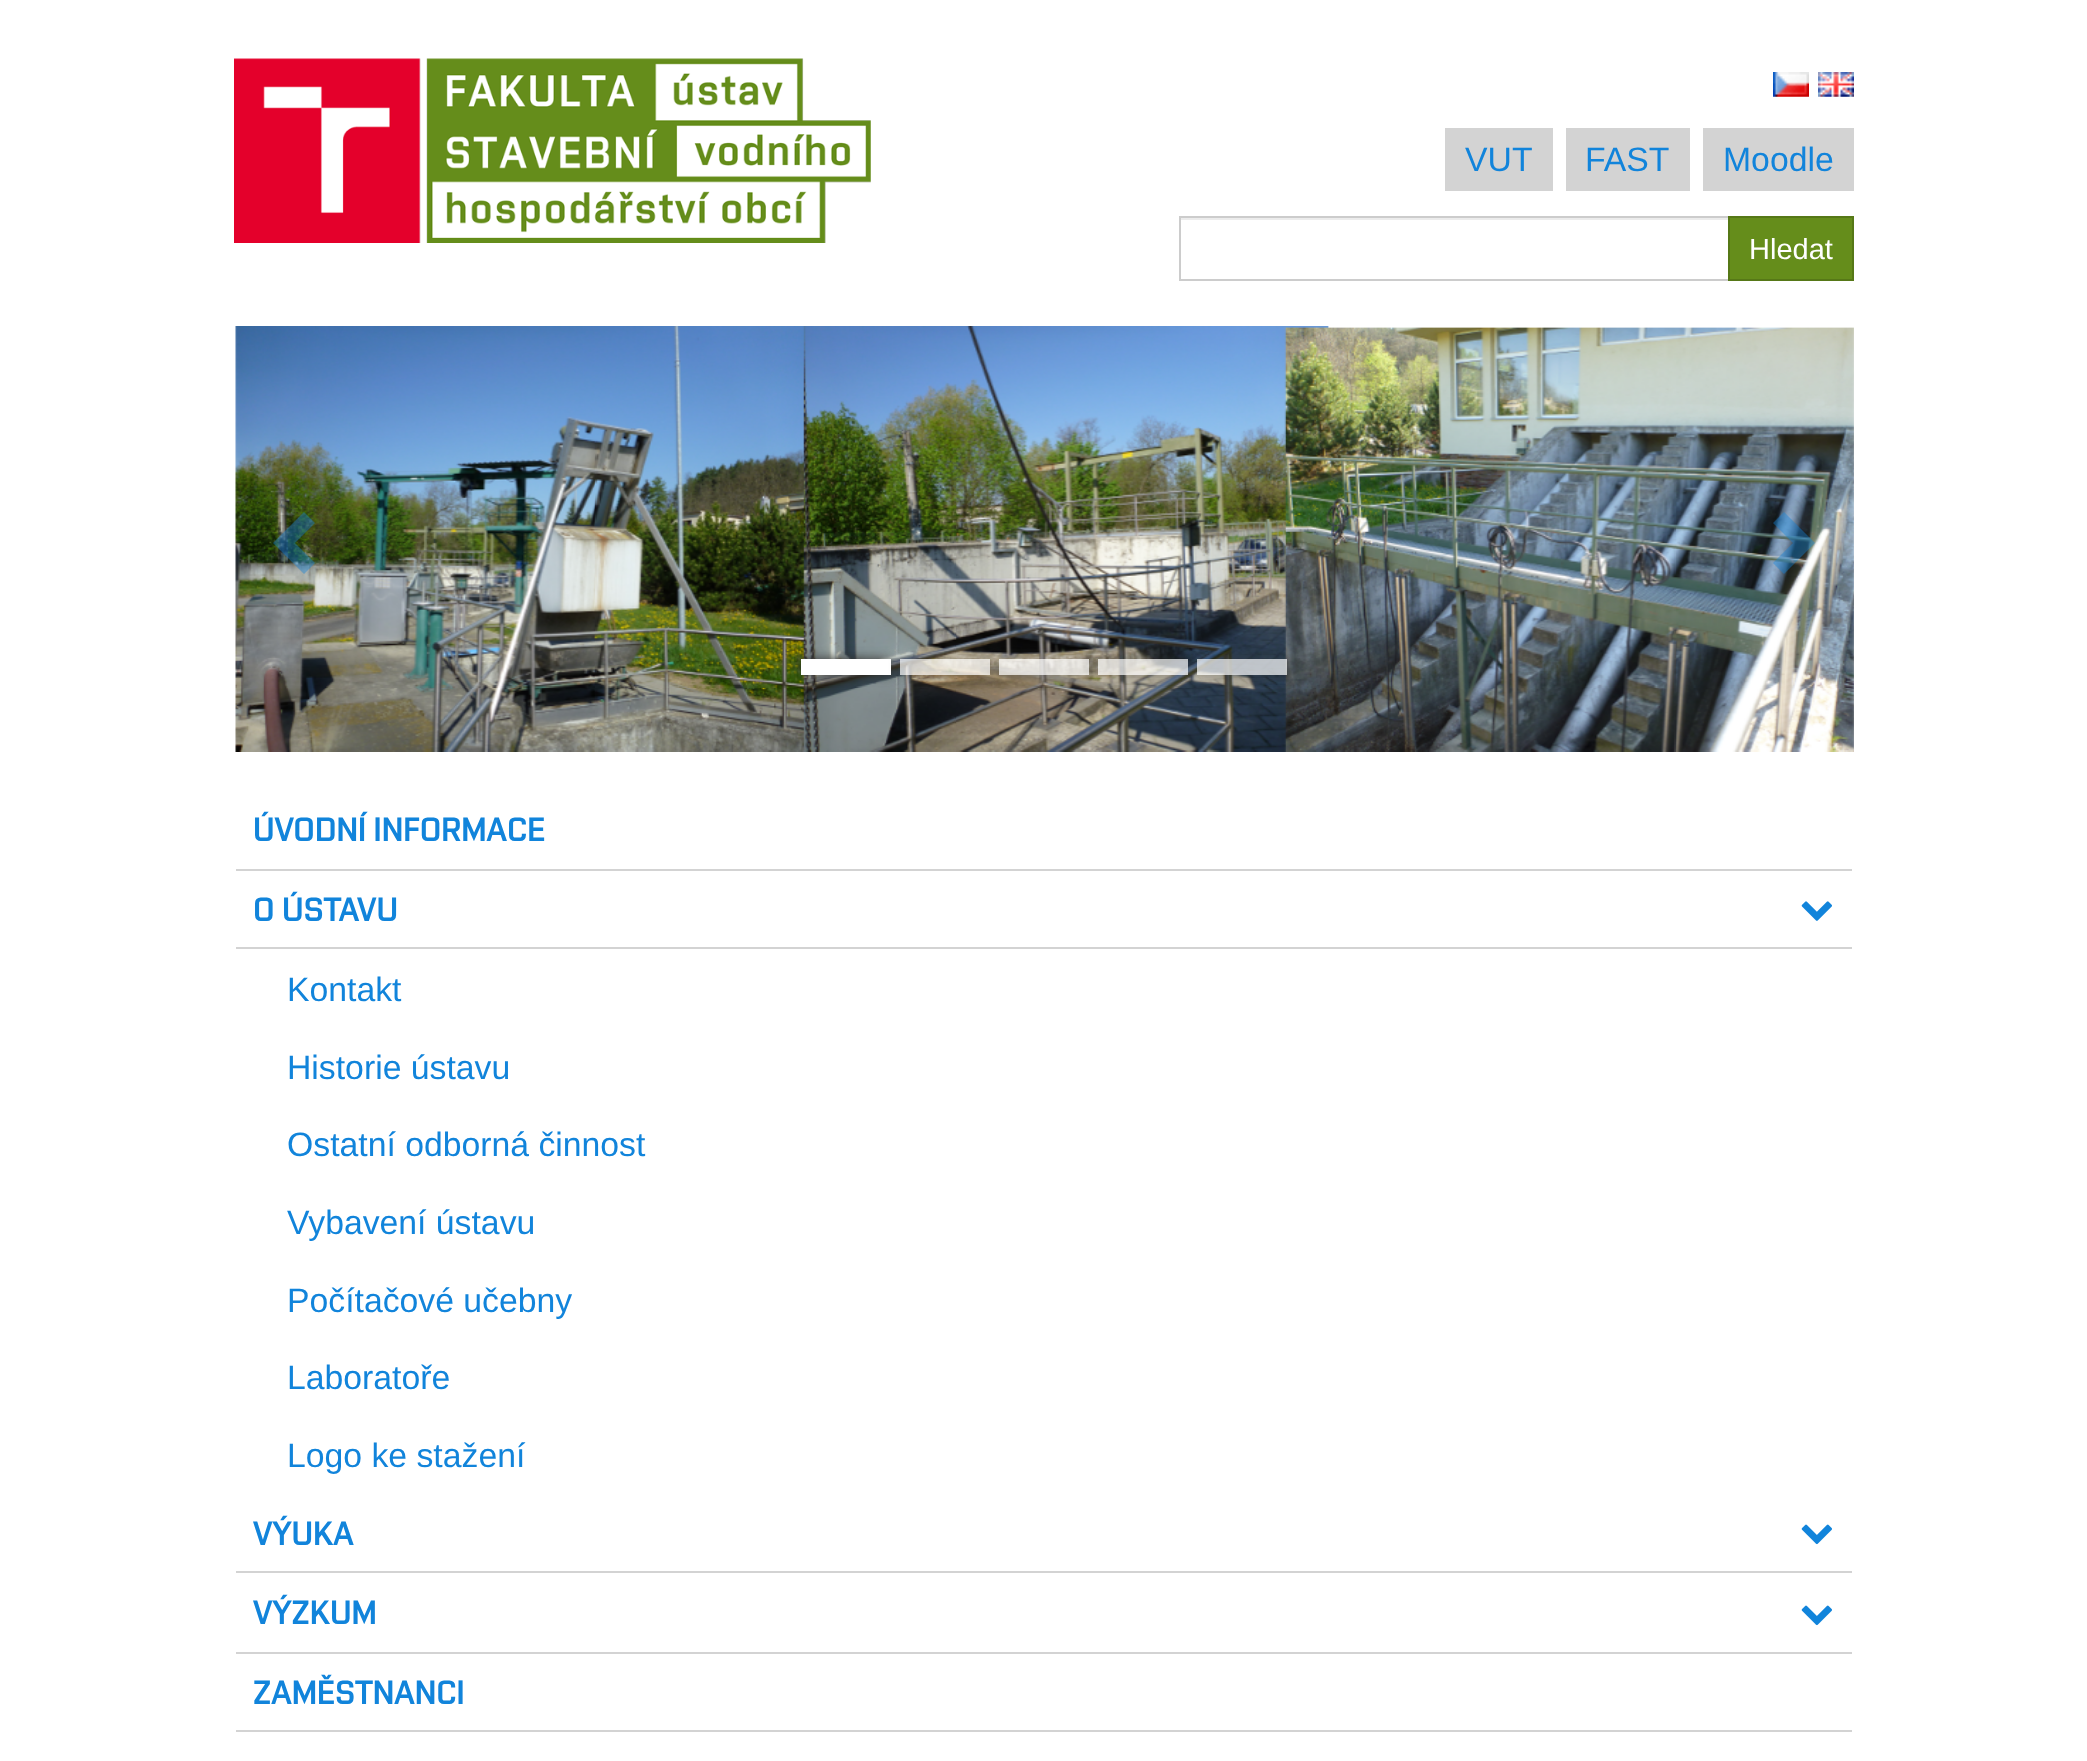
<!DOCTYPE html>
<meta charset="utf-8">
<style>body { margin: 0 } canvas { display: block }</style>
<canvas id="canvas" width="2087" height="1761"></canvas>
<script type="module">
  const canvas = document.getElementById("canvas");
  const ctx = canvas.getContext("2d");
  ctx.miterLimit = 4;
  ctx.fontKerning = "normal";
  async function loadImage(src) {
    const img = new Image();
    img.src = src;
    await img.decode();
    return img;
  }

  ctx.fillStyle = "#ffffff";
  ctx.fillRect(0, 0, 2087, 1761);
  ctx.drawImage(await loadImage("img1.png"), 234, 58, 637, 185);
  ctx.drawImage(await loadImage("img2.png"), 1773, 72, 36, 25);
  ctx.drawImage(await loadImage("img3.png"), 1818, 72, 36, 25);
  ctx.fillStyle = "#d3d3d3";
  ctx.fillRect(1445, 128, 108, 63);
  ctx.font = "33.75px Liberation Sans";
  ctx.fillStyle = "#1184db";
  ctx.fillText("VUT", 1465, 171);
  ctx.fillStyle = "#d3d3d3";
  ctx.fillRect(1566, 128, 124, 63);
  ctx.fillStyle = "#1184db";
  ctx.fillText("FAST", 1585, 171);
  ctx.fillStyle = "#d3d3d3";
  ctx.fillRect(1703, 128, 151, 63);
  ctx.fillStyle = "#1184db";
  ctx.fillText("Moodle", 1723, 171);
  ctx.fillStyle = "#ececec";
  ctx.fillRect(1181, 218, 547, 2);
  ctx.strokeStyle = "#cccccc";
  ctx.lineWidth = 2;
  ctx.strokeRect(1180, 217, 549, 63);
  ctx.fillStyle = "#658d1b";
  ctx.beginPath();
  ctx.rect(1729, 217, 124, 63);
  ctx.fill();
  ctx.strokeStyle = "#567817";
  ctx.stroke();
  ctx.font = "29px Liberation Sans";
  ctx.fillStyle = "#ffffff";
  ctx.fillText("Hledat", 1749, 259);
  ctx.drawImage(await loadImage("img4.png"), 235, 326, 1619, 426);
  ctx.fillStyle = "rgba(17, 132, 219, 0.4)";
  ctx.beginPath();
  ctx.moveTo(315, 523);
  ctx.lineTo(295, 543);
  ctx.lineTo(315, 563);
  ctx.lineTo(304, 574);
  ctx.lineTo(273, 543);
  ctx.lineTo(304, 512);
  ctx.closePath();
  ctx.fill();
  ctx.beginPath();
  ctx.moveTo(1815, 543);
  ctx.lineTo(1784, 574);
  ctx.lineTo(1773, 563);
  ctx.lineTo(1793, 543);
  ctx.lineTo(1773, 523);
  ctx.lineTo(1784, 512);
  ctx.closePath();
  ctx.fill();
  ctx.fillStyle = "#323232";
  ctx.filter = "blur(5.5px)";
  ctx.beginPath();
  ctx.rect(801, 659, 90, 16);
  ctx.fill();
  ctx.filter = "none";
  ctx.fillStyle = "#ffffff";
  ctx.fillRect(801, 659, 90, 16);
  ctx.save();
  ctx.beginPath();
  ctx.moveTo(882, 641);
  ctx.lineTo(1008, 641);
  ctx.lineTo(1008, 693);
  ctx.lineTo(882, 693);
  ctx.closePath();
  ctx.moveTo(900, 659);
  ctx.lineTo(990, 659);
  ctx.lineTo(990, 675);
  ctx.lineTo(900, 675);
  ctx.closePath();
  ctx.clip("evenodd");
  ctx.fillStyle = "rgba(50, 50, 50, 0.35)";
  ctx.filter = "blur(5.5px)";
  ctx.beginPath();
  ctx.rect(900, 659, 90, 16);
  ctx.fill();
  ctx.filter = "none";
  ctx.restore();
  ctx.fillStyle = "rgba(255, 255, 255, 0.7)";
  ctx.fillRect(900, 659, 90, 16);
  ctx.save();
  ctx.beginPath();
  ctx.moveTo(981, 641);
  ctx.lineTo(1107, 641);
  ctx.lineTo(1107, 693);
  ctx.lineTo(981, 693);
  ctx.closePath();
  ctx.moveTo(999, 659);
  ctx.lineTo(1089, 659);
  ctx.lineTo(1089, 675);
  ctx.lineTo(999, 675);
  ctx.closePath();
  ctx.clip("evenodd");
  ctx.fillStyle = "rgba(50, 50, 50, 0.35)";
  ctx.filter = "blur(5.5px)";
  ctx.beginPath();
  ctx.rect(999, 659, 90, 16);
  ctx.fill();
  ctx.filter = "none";
  ctx.restore();
  ctx.fillRect(999, 659, 90, 16);
  ctx.save();
  ctx.beginPath();
  ctx.moveTo(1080, 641);
  ctx.lineTo(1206, 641);
  ctx.lineTo(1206, 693);
  ctx.lineTo(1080, 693);
  ctx.closePath();
  ctx.moveTo(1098, 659);
  ctx.lineTo(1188, 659);
  ctx.lineTo(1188, 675);
  ctx.lineTo(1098, 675);
  ctx.closePath();
  ctx.clip("evenodd");
  ctx.fillStyle = "rgba(50, 50, 50, 0.35)";
  ctx.filter = "blur(5.5px)";
  ctx.beginPath();
  ctx.rect(1098, 659, 90, 16);
  ctx.fill();
  ctx.filter = "none";
  ctx.restore();
  ctx.fillRect(1098, 659, 90, 16);
  ctx.save();
  ctx.beginPath();
  ctx.moveTo(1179, 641);
  ctx.lineTo(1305, 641);
  ctx.lineTo(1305, 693);
  ctx.lineTo(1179, 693);
  ctx.closePath();
  ctx.moveTo(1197, 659);
  ctx.lineTo(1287, 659);
  ctx.lineTo(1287, 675);
  ctx.lineTo(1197, 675);
  ctx.closePath();
  ctx.clip("evenodd");
  ctx.fillStyle = "rgba(50, 50, 50, 0.35)";
  ctx.filter = "blur(5.5px)";
  ctx.beginPath();
  ctx.rect(1197, 659, 90, 16);
  ctx.fill();
  ctx.filter = "none";
  ctx.restore();
  ctx.fillRect(1197, 659, 90, 16);
  ctx.fillStyle = "#d3d3d3";
  ctx.fillRect(236, 869, 1616, 2);
  ctx.font = "33.75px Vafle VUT";
  ctx.fillStyle = "#1184db";
  ctx.fillText("ÚVODNÍ INFORMACE", 253, 841);
  ctx.fillStyle = "#d3d3d3";
  ctx.fillRect(236, 947, 1616, 2);
  ctx.fillStyle = "#1184db";
  ctx.fillText("O ÚSTAVU", 253, 921);
  ctx.drawImage(await loadImage("img5.png"), 1801, 901, 31, 20);
  ctx.font = "33.75px Liberation Sans";
  ctx.fillText("Kontakt", 287, 1001);
  ctx.fillText("Historie ústavu", 287, 1079);
  ctx.fillText("Ostatní odborná činnost", 287, 1156);
  ctx.fillText("Vybavení ústavu", 287, 1234);
  ctx.fillText("Počítačové učebny", 287, 1312);
  ctx.fillText("Laboratoře", 287, 1389);
  ctx.fillText("Logo ke stažení", 287, 1467);
  ctx.fillStyle = "#d3d3d3";
  ctx.fillRect(236, 1571, 1616, 2);
  ctx.font = "33.75px Vafle VUT";
  ctx.fillStyle = "#1184db";
  ctx.fillText("VÝUKA", 253, 1545);
  ctx.drawImage(await loadImage("img6.png"), 1801, 1524, 31, 21);
  ctx.fillStyle = "#d3d3d3";
  ctx.fillRect(236, 1652, 1616, 2);
  ctx.fillStyle = "#1184db";
  ctx.fillText("VÝZKUM", 253, 1624);
  ctx.drawImage(await loadImage("img6.png"), 1801, 1605, 31, 21);
  ctx.fillStyle = "#d3d3d3";
  ctx.fillRect(236, 1730, 1616, 2);
  ctx.fillStyle = "#1184db";
  ctx.fillText("ZAMĚSTNANCI", 253, 1704);
</script>
